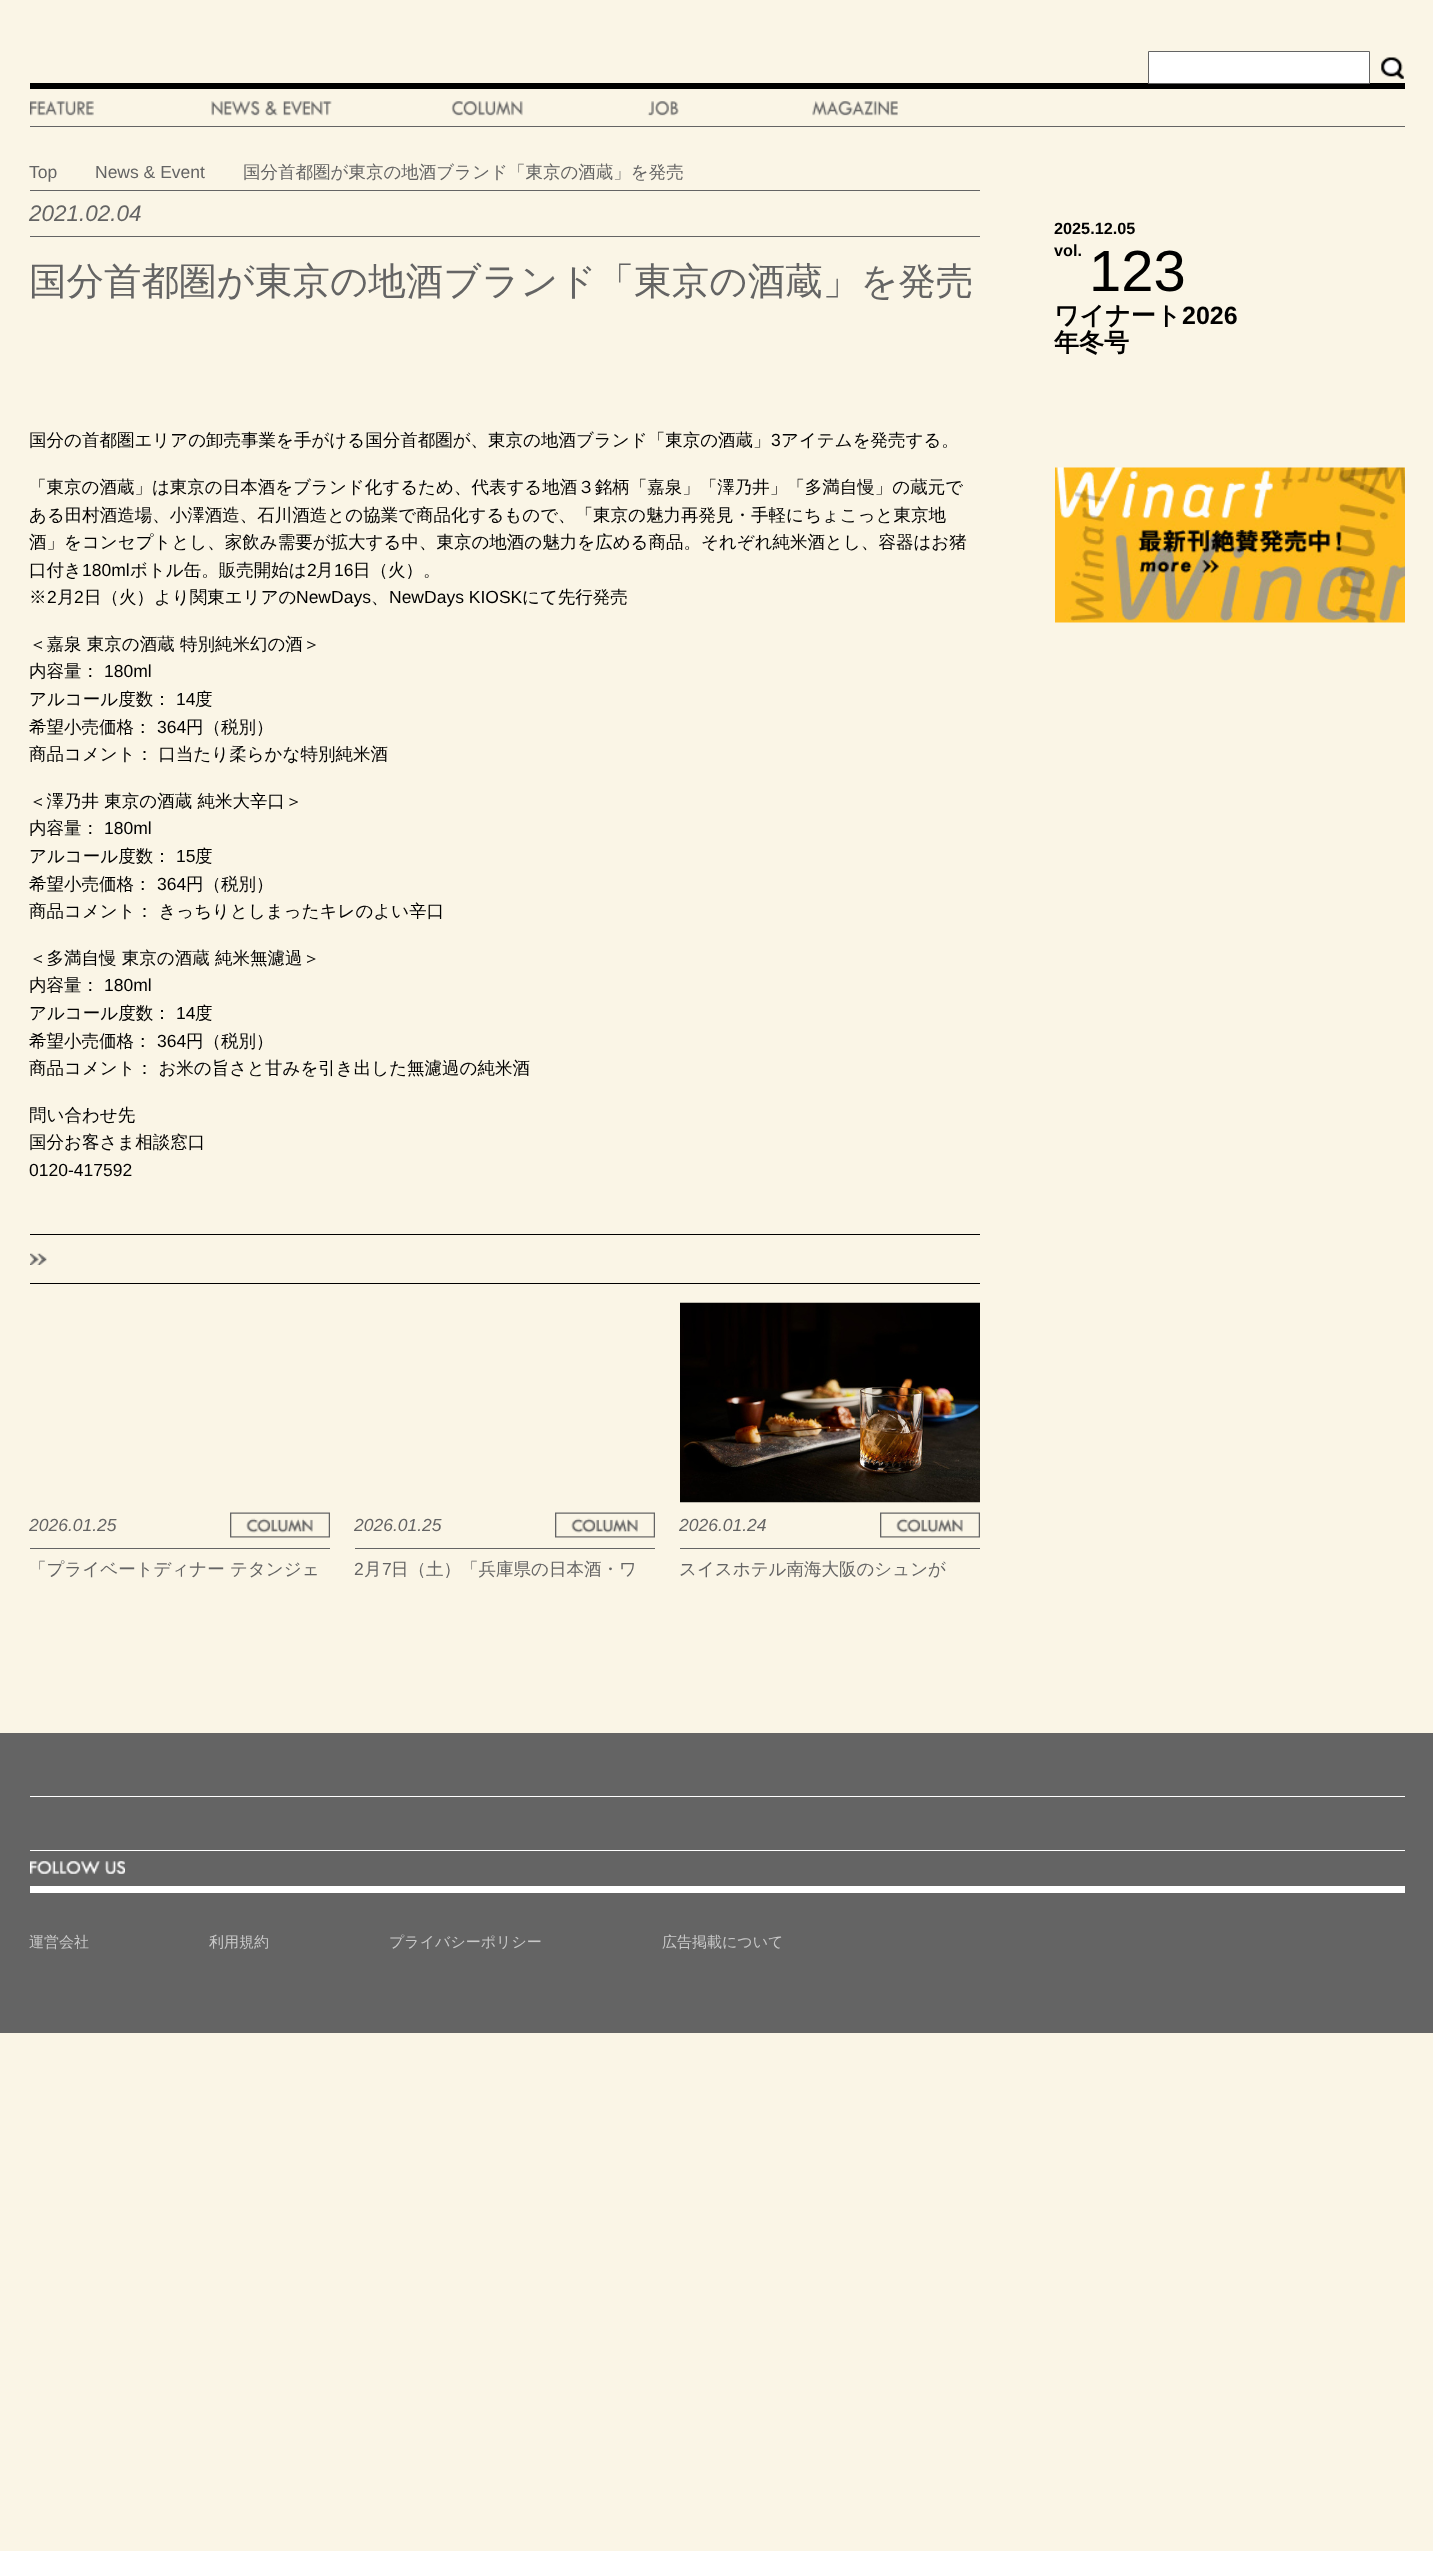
<!DOCTYPE html>
<meta charset="utf-8">
<style>body { margin: 0 } canvas { display: block }</style>
<canvas id="canvas" width="1433" height="2551"></canvas>
<script type="module">
  const canvas = document.getElementById("canvas");
  const ctx = canvas.getContext("2d");
  ctx.miterLimit = 4;
  ctx.fontKerning = "normal";
  async function loadImage(src) {
    const img = new Image();
    img.src = src;
    await img.decode();
    return img;
  }

  ctx.fillStyle = "#faf5e6";
  ctx.fillRect(0, 0, 1433, 2551);
  ctx.fillStyle = "#000000";
  ctx.fillRect(30, 83, 1375, 6);
  ctx.fillStyle = "#ffffff";
  ctx.beginPath();
  ctx.rect(1148.5, 51.5, 221, 32);
  ctx.fill();
  ctx.strokeStyle = "#646464";
  ctx.stroke();
  ctx.drawImage(await loadImage("img1.png"), 1381, 57, 23, 22);
  ctx.fillStyle = "#646464";
  ctx.fillRect(30, 126, 1375, 1);
  ctx.drawImage(await loadImage("img2.png"), 30, 101, 64, 15);
  ctx.drawImage(await loadImage("img3.png"), 211, 101, 121, 15);
  ctx.drawImage(await loadImage("img4.png"), 451, 101, 72, 15);
  ctx.drawImage(await loadImage("img5.png"), 647, 101, 32, 15);
  ctx.drawImage(await loadImage("img6.png"), 812, 101, 86, 15);
  ctx.font = "17.5px Liberation Sans";
  ctx.fillText("Top", 29, 178);
  ctx.fillText("News & Event", 95, 178);
  ctx.font = "500 17.5px WenQuanYi Zen Hei";
  ctx.fillText("国分首都圏が東京の地酒ブランド「東京の酒蔵」を発売", 243, 178);
  ctx.fillRect(30, 190, 950, 1);
  ctx.fillRect(30, 236, 950, 1);
  ctx.font = "italic 22.5px Liberation Sans";
  ctx.fillText("2021.02.04", 29, 221);
  ctx.font = "500 37.5px WenQuanYi Zen Hei";
  ctx.fillText("国分首都圏が東京の地酒ブランド「東京の酒蔵」を発売", 29, 294);
  ctx.font = "500 17.5px WenQuanYi Zen Hei";
  ctx.fillStyle = "#000000";
  ctx.fillText("国分の首都圏エリアの卸売事業を手がける国分首都圏が、東京の地酒ブランド「東京の酒蔵」", 29, 446);
  ctx.font = "17.5px Liberation Sans";
  ctx.fillText("3", 771, 446);
  ctx.font = "500 17.5px WenQuanYi Zen Hei";
  ctx.fillText("アイテムを発売する。", 781, 446);
  ctx.fillText("「東京の酒蔵」は東京の日本酒をブランド化するため、代表する地酒３銘柄「嘉泉」「澤乃井」「多満自慢」の蔵元で", 29, 493);
  ctx.fillText("ある田村酒造場、小澤酒造、石川酒造との協業で商品化するもので、「東京の魅力再発見・手軽にちょこっと東京地", 29, 521);
  ctx.fillText("酒」をコンセプトとし、家飲み需要が拡大する中、東京の地酒の魅力を広める商品。それぞれ純米酒とし、容器はお猪", 29, 548);
  ctx.fillText("口付き", 29, 576);
  ctx.font = "17.5px Liberation Sans";
  ctx.fillText("180ml", 82, 576);
  ctx.font = "500 17.5px WenQuanYi Zen Hei";
  ctx.fillText("ボトル缶。販売開始は", 130, 576);
  ctx.font = "17.5px Liberation Sans";
  ctx.fillText("2", 307, 576);
  ctx.font = "500 17.5px WenQuanYi Zen Hei";
  ctx.fillText("月", 316, 576);
  ctx.font = "17.5px Liberation Sans";
  ctx.fillText("16", 334, 576);
  ctx.font = "500 17.5px WenQuanYi Zen Hei";
  ctx.fillText("日（火）。", 353, 576);
  ctx.fillText("※", 29, 603);
  ctx.font = "17.5px Liberation Sans";
  ctx.fillText("2", 47, 603);
  ctx.font = "500 17.5px WenQuanYi Zen Hei";
  ctx.fillText("月", 57, 603);
  ctx.font = "17.5px Liberation Sans";
  ctx.fillText("2", 74, 603);
  ctx.font = "500 17.5px WenQuanYi Zen Hei";
  ctx.fillText("日（火）より関東エリアの", 84, 603);
  ctx.font = "17.5px Liberation Sans";
  ctx.fillText("NewDays", 296, 603);
  ctx.font = "500 17.5px WenQuanYi Zen Hei";
  ctx.fillText("、", 371, 603);
  ctx.font = "17.5px Liberation Sans";
  ctx.fillText("NewDays KIOSK", 389, 603);
  ctx.font = "500 17.5px WenQuanYi Zen Hei";
  ctx.fillText("にて先行発売", 522, 603);
  ctx.fillText("＜嘉泉 東京の酒蔵 特別純米幻の酒＞", 29, 650);
  ctx.fillText("内容量：", 29, 677);
  ctx.font = "17.5px Liberation Sans";
  ctx.fillText("180ml", 104, 677);
  ctx.font = "500 17.5px WenQuanYi Zen Hei";
  ctx.fillText("アルコール度数：", 29, 705);
  ctx.font = "17.5px Liberation Sans";
  ctx.fillText("14", 176, 705);
  ctx.font = "500 17.5px WenQuanYi Zen Hei";
  ctx.fillText("度", 195, 705);
  ctx.fillText("希望小売価格：", 29, 733);
  ctx.font = "17.5px Liberation Sans";
  ctx.fillText("364", 157, 733);
  ctx.font = "500 17.5px WenQuanYi Zen Hei";
  ctx.fillText("円（税別）", 186, 733);
  ctx.fillText("商品コメント： 口当たり柔らかな特別純米酒", 29, 760);
  ctx.fillText("＜澤乃井 東京の酒蔵 純米大辛口＞", 29, 807);
  ctx.fillText("内容量：", 29, 834);
  ctx.font = "17.5px Liberation Sans";
  ctx.fillText("180ml", 104, 834);
  ctx.font = "500 17.5px WenQuanYi Zen Hei";
  ctx.fillText("アルコール度数：", 29, 862);
  ctx.font = "17.5px Liberation Sans";
  ctx.fillText("15", 176, 862);
  ctx.font = "500 17.5px WenQuanYi Zen Hei";
  ctx.fillText("度", 195, 862);
  ctx.fillText("希望小売価格：", 29, 890);
  ctx.font = "17.5px Liberation Sans";
  ctx.fillText("364", 157, 890);
  ctx.font = "500 17.5px WenQuanYi Zen Hei";
  ctx.fillText("円（税別）", 186, 890);
  ctx.fillText("商品コメント： きっちりとしまったキレのよい辛口", 29, 917);
  ctx.fillText("＜多満自慢 東京の酒蔵 純米無濾過＞", 29, 964);
  ctx.fillText("内容量：", 29, 991);
  ctx.font = "17.5px Liberation Sans";
  ctx.fillText("180ml", 104, 991);
  ctx.font = "500 17.5px WenQuanYi Zen Hei";
  ctx.fillText("アルコール度数：", 29, 1019);
  ctx.font = "17.5px Liberation Sans";
  ctx.fillText("14", 176, 1019);
  ctx.font = "500 17.5px WenQuanYi Zen Hei";
  ctx.fillText("度", 195, 1019);
  ctx.fillText("希望小売価格：", 29, 1047);
  ctx.font = "17.5px Liberation Sans";
  ctx.fillText("364", 157, 1047);
  ctx.font = "500 17.5px WenQuanYi Zen Hei";
  ctx.fillText("円（税別）", 186, 1047);
  ctx.fillText("商品コメント： お米の旨さと甘みを引き出した無濾過の純米酒", 29, 1074);
  ctx.fillText("問い合わせ先", 29, 1121);
  ctx.fillText("国分お客さま相談窓口", 29, 1148);
  ctx.font = "17.5px Liberation Sans";
  ctx.fillText("0120-417592", 29, 1176);
  ctx.fillRect(30, 1234, 950, 1);
  ctx.fillRect(30, 1283, 950, 1);
  ctx.drawImage(await loadImage("img7.png"), 30, 1253, 17, 12);
  ctx.fillStyle = "#646464";
  ctx.fillRect(30, 1548, 300, 1);
  ctx.font = "italic 17.5px Liberation Sans";
  ctx.fillText("2026.01.25", 29, 1531);
  ctx.drawImage(await loadImage("img8.png"), 230, 1512, 100, 26);
  ctx.font = "500 17.5px WenQuanYi Zen Hei";
  ctx.fillText("「プライベートディナー テタンジェ", 29, 1575);
  ctx.fillRect(355, 1548, 300, 1);
  ctx.font = "italic 17.5px Liberation Sans";
  ctx.fillText("2026.01.25", 354, 1531);
  ctx.drawImage(await loadImage("img9.png"), 555, 1512, 100, 26);
  ctx.font = "17.5px Liberation Sans";
  ctx.fillText("2", 354, 1575);
  ctx.font = "500 17.5px WenQuanYi Zen Hei";
  ctx.fillText("月", 364, 1575);
  ctx.font = "17.5px Liberation Sans";
  ctx.fillText("7", 382, 1575);
  ctx.font = "500 17.5px WenQuanYi Zen Hei";
  ctx.fillText("日（土）「兵庫県の日本酒・ワ", 391, 1575);
  ctx.drawImage(await loadImage("img10.png"), 680, 1302, 300, 201);
  ctx.fillRect(680, 1548, 300, 1);
  ctx.font = "italic 17.5px Liberation Sans";
  ctx.fillText("2026.01.24", 679, 1531);
  ctx.drawImage(await loadImage("img8.png"), 880, 1512, 100, 26);
  ctx.font = "500 17.5px WenQuanYi Zen Hei";
  ctx.fillText("スイスホテル南海大阪のシュンが", 679, 1575);
  ctx.font = "bold 16.25px Liberation Sans";
  ctx.fillStyle = "#000000";
  ctx.fillText("2025.12.05", 1054, 234);
  ctx.fillText("vol.", 1054, 256);
  ctx.font = "58px Liberation Sans";
  ctx.fillText("123", 1089, 291);
  ctx.font = "bold 25px WenQuanYi Zen Hei";
  ctx.fillText("ワイナート", 1054, 324);
  ctx.font = "bold 25px Liberation Sans";
  ctx.fillText("2026", 1182, 324);
  ctx.font = "bold 25px WenQuanYi Zen Hei";
  ctx.fillText("年冬号", 1054, 351);
  ctx.drawImage(await loadImage("img11.png"), 1055, 467, 350, 156);
  ctx.fillStyle = "#646464";
  ctx.fillRect(0, 1733, 1433, 300);
  ctx.fillStyle = "#ffffff";
  ctx.fillRect(30, 1796, 1375, 1);
  ctx.fillRect(30, 1850, 1375, 1);
  ctx.fillRect(30, 1886, 1375, 7);
  ctx.drawImage(await loadImage("img12.png"), 30, 1861, 95, 13);
  ctx.font = "500 15px WenQuanYi Zen Hei";
  ctx.fillStyle = "#c8c8c8";
  ctx.fillText("運営会社", 29, 1947);
  ctx.fillText("利用規約", 209, 1947);
  ctx.fillText("プライバシーポリシー", 389, 1947);
  ctx.fillText("広告掲載について", 662, 1947);
</script>
